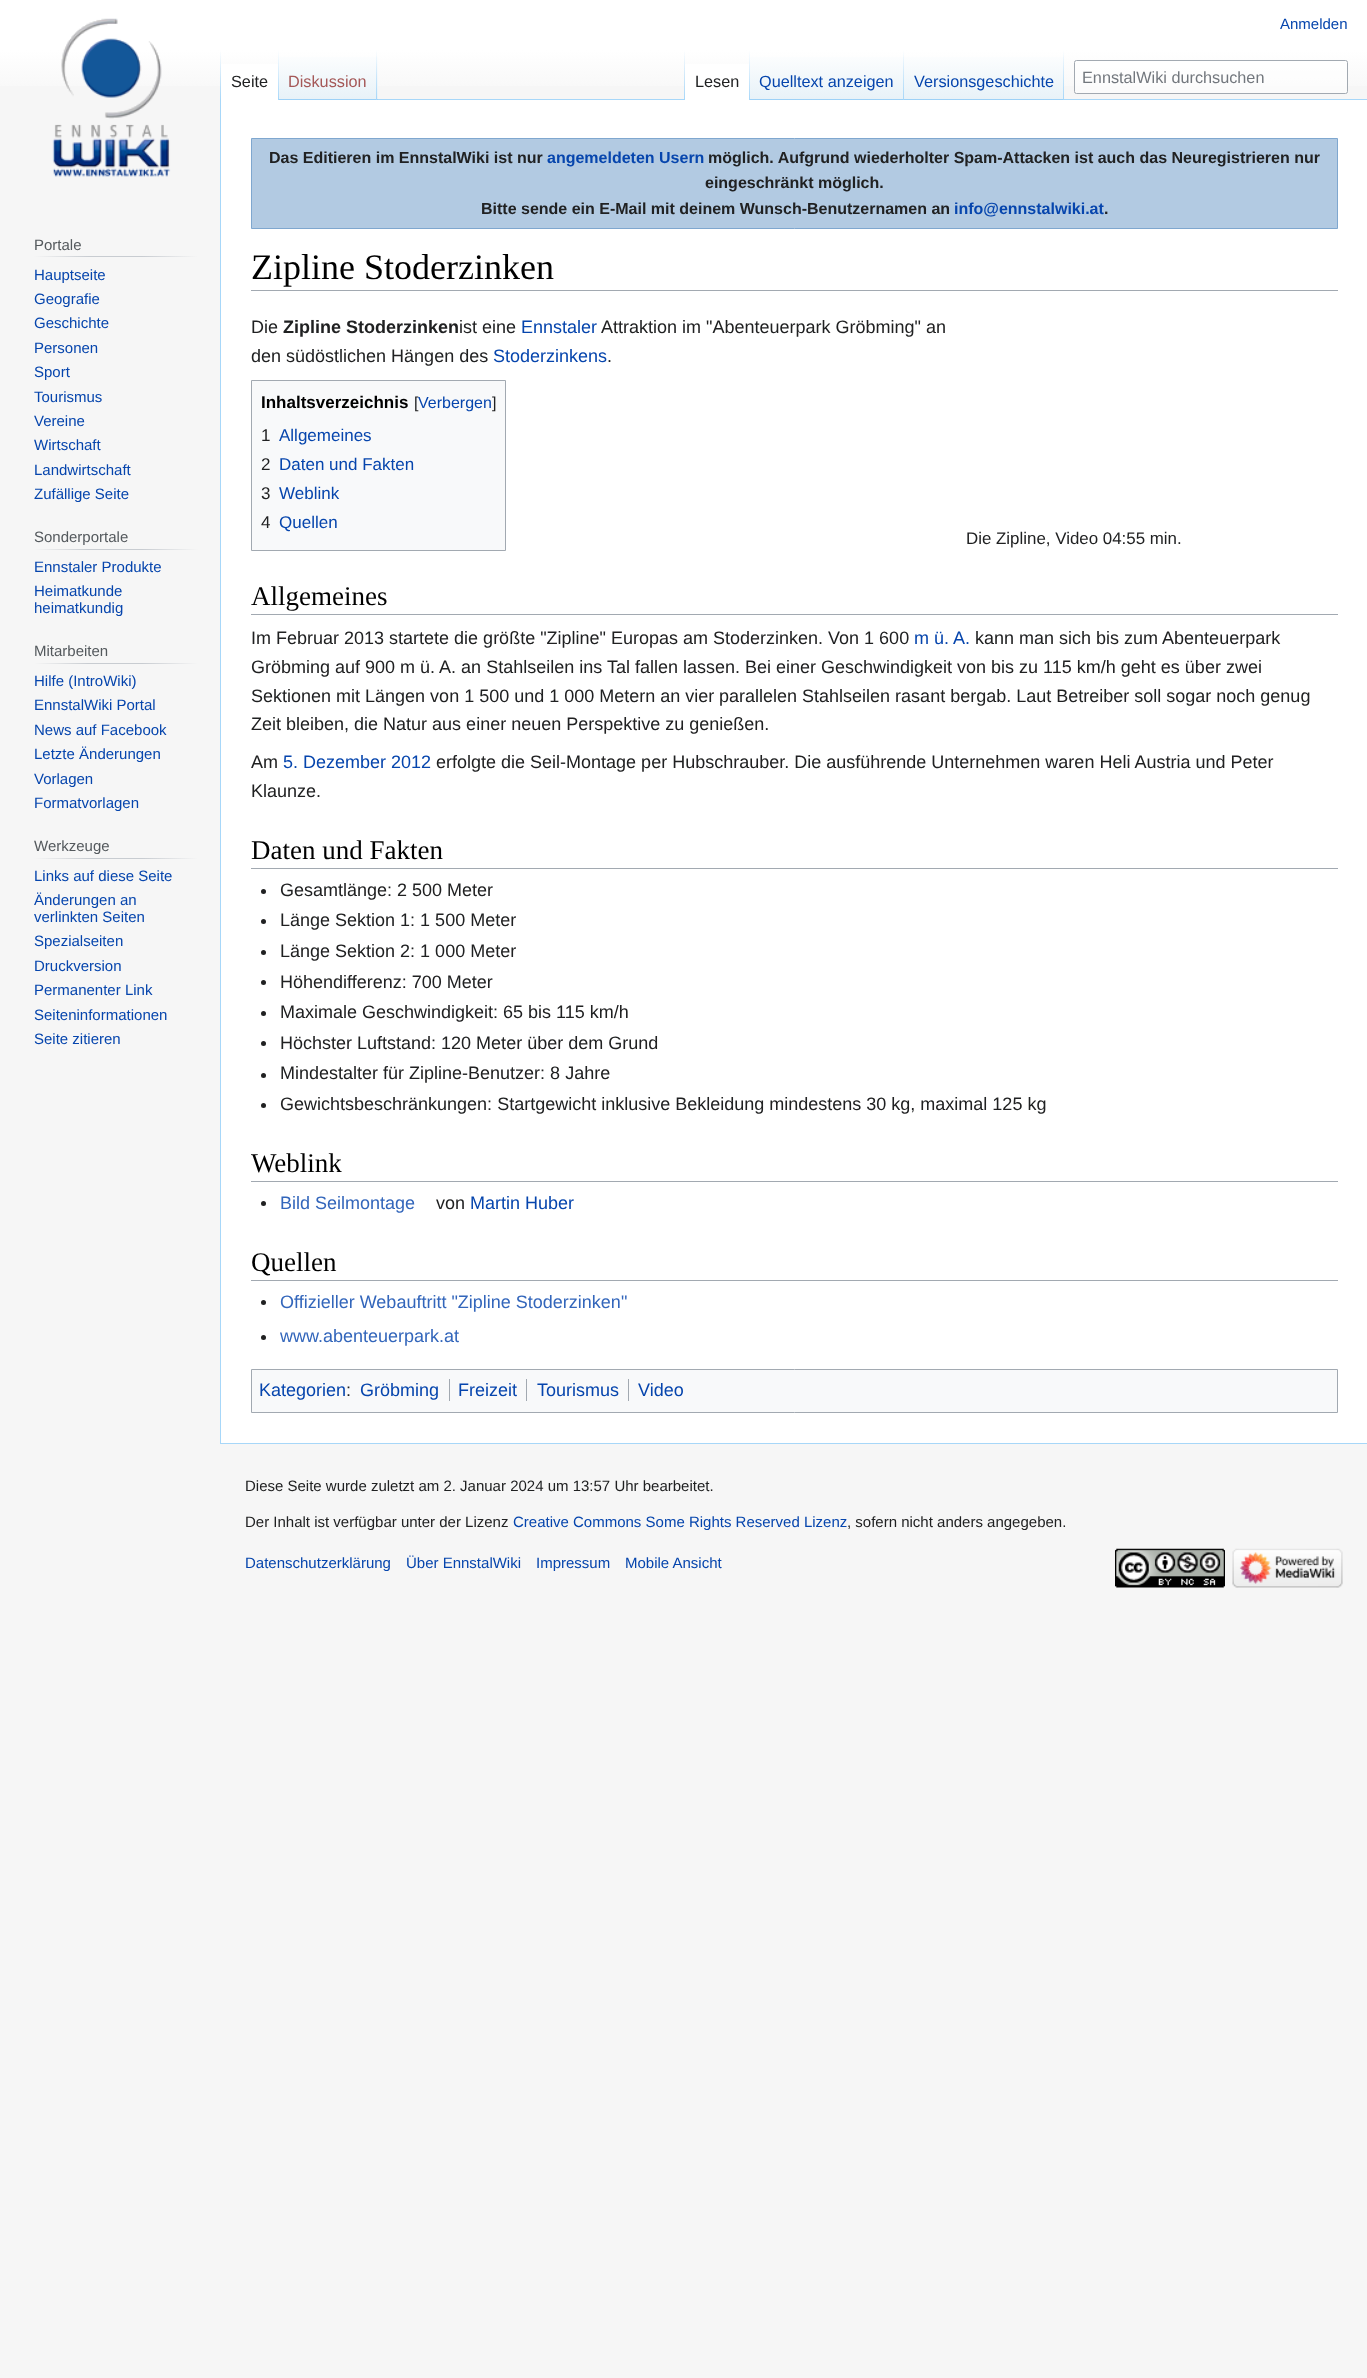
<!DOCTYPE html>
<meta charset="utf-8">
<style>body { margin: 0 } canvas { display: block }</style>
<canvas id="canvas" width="1367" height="2378"></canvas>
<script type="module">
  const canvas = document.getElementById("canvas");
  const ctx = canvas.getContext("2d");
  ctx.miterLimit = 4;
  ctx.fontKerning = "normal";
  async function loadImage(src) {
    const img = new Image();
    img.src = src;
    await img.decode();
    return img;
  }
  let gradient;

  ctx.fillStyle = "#f6f6f6";
  ctx.fillRect(0, 0, 1367, 2378);
  gradient = ctx.createLinearGradient(684, 0, 684, 100);
  gradient.addColorStop(0.5, "#ffffff");
  gradient.addColorStop(1, "#f6f6f6");
  ctx.fillStyle = gradient;
  ctx.fillRect(0, 0, 1367, 86);
  ctx.font = "15px Liberation Sans";
  ctx.fillStyle = "#0645ad";
  ctx.fillText("Anmelden", 1280, 29);
  ctx.fillStyle = "#a7d7f9";
  ctx.fillRect(220, 1443, 1147, 1);
  ctx.fillRect(220, 99, 1, 1345);
  gradient = ctx.createLinearGradient(221, 50, 221, 100);
  gradient.addColorStop(0, "rgba(167, 215, 249, 0)");
  gradient.addColorStop(1, "#a7d7f9");
  ctx.fillStyle = gradient;
  ctx.fillRect(220, 50, 1, 50);
  ctx.fillStyle = "#ffffff";
  ctx.fillRect(221, 64, 57, 36);
  gradient = ctx.createLinearGradient(278, 50, 278, 100);
  gradient.addColorStop(0, "#ffffff");
  gradient.addColorStop(1, "#a7d7f9");
  ctx.fillStyle = gradient;
  ctx.fillRect(278, 50, 1, 50);
  ctx.font = "16.25px Liberation Sans";
  ctx.fillStyle = "#202122";
  ctx.fillText("Seite", 231, 87);
  gradient = ctx.createLinearGradient(328, 100, 328, 50);
  gradient.addColorStop(0, "#77c1f6");
  gradient.addColorStop(0.03, "#e8f2f8");
  gradient.addColorStop(1, "#ffffff");
  ctx.fillStyle = gradient;
  ctx.fillRect(279, 57, 99, 43);
  gradient = ctx.createLinearGradient(377, 50, 377, 100);
  gradient.addColorStop(0, "rgba(167, 215, 249, 0)");
  gradient.addColorStop(1, "#a7d7f9");
  ctx.fillStyle = gradient;
  ctx.fillRect(376, 50, 1, 50);
  ctx.fillStyle = "#a55858";
  ctx.fillText("Diskussion", 288, 87);
  ctx.fillStyle = "#a7d7f9";
  ctx.fillRect(378, 99, 989, 1);
  gradient = ctx.createLinearGradient(684, 50, 684, 100);
  gradient.addColorStop(0, "rgba(167, 215, 249, 0)");
  gradient.addColorStop(1, "#a7d7f9");
  ctx.fillStyle = gradient;
  ctx.fillRect(684, 50, 1, 50);
  ctx.fillStyle = "#ffffff";
  ctx.fillRect(685, 64, 64, 36);
  gradient = ctx.createLinearGradient(749, 50, 749, 100);
  gradient.addColorStop(0, "#ffffff");
  gradient.addColorStop(1, "#a7d7f9");
  ctx.fillStyle = gradient;
  ctx.fillRect(749, 50, 1, 50);
  ctx.fillStyle = "#202122";
  ctx.fillText("Lesen", 695, 87);
  gradient = ctx.createLinearGradient(827, 100, 827, 50);
  gradient.addColorStop(0, "#77c1f6");
  gradient.addColorStop(0.03, "#e8f2f8");
  gradient.addColorStop(1, "#ffffff");
  ctx.fillStyle = gradient;
  ctx.fillRect(750, 57, 154, 43);
  gradient = ctx.createLinearGradient(903, 50, 903, 100);
  gradient.addColorStop(0, "rgba(167, 215, 249, 0)");
  gradient.addColorStop(1, "#a7d7f9");
  ctx.fillStyle = gradient;
  ctx.fillRect(903, 50, 1, 50);
  ctx.fillStyle = "#0645ad";
  ctx.fillText("Quelltext anzeigen", 759, 87);
  gradient = ctx.createLinearGradient(984, 100, 984, 50);
  gradient.addColorStop(0, "#77c1f6");
  gradient.addColorStop(0.03, "#e8f2f8");
  gradient.addColorStop(1, "#ffffff");
  ctx.fillStyle = gradient;
  ctx.fillRect(904, 57, 160, 43);
  gradient = ctx.createLinearGradient(1063, 50, 1063, 100);
  gradient.addColorStop(0, "rgba(167, 215, 249, 0)");
  gradient.addColorStop(1, "#a7d7f9");
  ctx.fillStyle = gradient;
  ctx.fillRect(1063, 50, 1, 50);
  ctx.fillStyle = "#0645ad";
  ctx.fillText("Versionsgeschichte", 914, 87);
  ctx.fillStyle = "rgba(255, 255, 255, 0.5)";
  ctx.beginPath();
  ctx.roundRect(1074.5, 60.5, 273, 33, 2);
  ctx.fill();
  ctx.strokeStyle = "#a2a9b1";
  ctx.stroke();
  ctx.fillStyle = "#72777d";
  ctx.fillText("EnnstalWiki durchsuchen", 1082, 83);
  ctx.drawImage(await loadImage("img1.png"), 52, 18, 119, 159);
  gradient = ctx.createLinearGradient(34, 257, 198, 257);
  gradient.addColorStop(0, "#f6f6f6");
  gradient.addColorStop(0.33, "#c8ccd1");
  gradient.addColorStop(0.66, "#c8ccd1");
  gradient.addColorStop(1, "#f6f6f6");
  ctx.fillStyle = gradient;
  ctx.fillRect(34, 256, 164, 1);
  ctx.font = "15px Liberation Sans";
  ctx.fillStyle = "#54595d";
  ctx.fillText("Portale", 34, 250);
  ctx.fillStyle = "#0645ad";
  ctx.fillText("Hauptseite", 34, 280);
  ctx.fillText("Geografie", 34, 304);
  ctx.fillText("Geschichte", 34, 328);
  ctx.fillText("Personen", 34, 353);
  ctx.fillText("Sport", 34, 377);
  ctx.fillText("Tourismus", 34, 402);
  ctx.fillText("Vereine", 34, 426);
  ctx.fillText("Wirtschaft", 34, 450);
  ctx.fillText("Landwirtschaft", 34, 475);
  ctx.fillText("Zufällige Seite", 34, 499);
  gradient = ctx.createLinearGradient(34, 549, 198, 549);
  gradient.addColorStop(0, "#f6f6f6");
  gradient.addColorStop(0.33, "#c8ccd1");
  gradient.addColorStop(0.66, "#c8ccd1");
  gradient.addColorStop(1, "#f6f6f6");
  ctx.fillStyle = gradient;
  ctx.fillRect(34, 549, 164, 1);
  ctx.fillStyle = "#54595d";
  ctx.fillText("Sonderportale", 34, 542);
  ctx.fillStyle = "#0645ad";
  ctx.fillText("Ennstaler Produkte", 34, 572);
  ctx.fillText("Heimatkunde", 34, 596);
  ctx.fillText("heimatkundig", 34, 613);
  gradient = ctx.createLinearGradient(34, 663, 198, 663);
  gradient.addColorStop(0, "#f6f6f6");
  gradient.addColorStop(0.33, "#c8ccd1");
  gradient.addColorStop(0.66, "#c8ccd1");
  gradient.addColorStop(1, "#f6f6f6");
  ctx.fillStyle = gradient;
  ctx.fillRect(34, 663, 164, 1);
  ctx.fillStyle = "#54595d";
  ctx.fillText("Mitarbeiten", 34, 656);
  ctx.fillStyle = "#0645ad";
  ctx.fillText("Hilfe (IntroWiki)", 34, 686);
  ctx.fillText("EnnstalWiki Portal", 34, 710);
  ctx.fillText("News auf Facebook", 34, 735);
  ctx.fillText("Letzte Änderungen", 34, 759);
  ctx.fillText("Vorlagen", 34, 784);
  ctx.fillText("Formatvorlagen", 34, 808);
  gradient = ctx.createLinearGradient(34, 858, 198, 858);
  gradient.addColorStop(0, "#f6f6f6");
  gradient.addColorStop(0.33, "#c8ccd1");
  gradient.addColorStop(0.66, "#c8ccd1");
  gradient.addColorStop(1, "#f6f6f6");
  ctx.fillStyle = gradient;
  ctx.fillRect(34, 858, 164, 1);
  ctx.fillStyle = "#54595d";
  ctx.fillText("Werkzeuge", 34, 851);
  ctx.fillStyle = "#0645ad";
  ctx.fillText("Links auf diese Seite", 34, 881);
  ctx.fillText("Änderungen an", 34, 905);
  ctx.fillText("verlinkten Seiten", 34, 922);
  ctx.fillText("Spezialseiten", 34, 946);
  ctx.fillText("Druckversion", 34, 971);
  ctx.fillText("Permanenter Link", 34, 995);
  ctx.fillText("Seiteninformationen", 34, 1020);
  ctx.fillText("Seite zitieren", 34, 1044);
  ctx.fillStyle = "#ffffff";
  ctx.fillRect(221, 100, 1146, 1343);
  ctx.fillStyle = "#b2cae2";
  ctx.beginPath();
  ctx.rect(251.5, 138.5, 1086, 90);
  ctx.fill();
  ctx.strokeStyle = "#7fa7cf";
  ctx.stroke();
  ctx.font = "bold 16px Liberation Sans";
  ctx.fillStyle = "#202122";
  ctx.fillText("Das Editieren im EnnstalWiki ist nur", 269, 163);
  ctx.fillStyle = "#0645ad";
  ctx.fillText("angemeldeten Usern", 547, 163);
  ctx.fillStyle = "#202122";
  ctx.fillText("möglich. Aufgrund wiederholter Spam-Attacken ist auch das Neuregistrieren nur", 708, 163);
  ctx.fillText("eingeschränkt möglich.", 705, 188);
  ctx.fillText("Bitte sende ein E-Mail mit deinem Wunsch-Benutzernamen an", 481, 214);
  ctx.fillStyle = "#0645ad";
  ctx.fillText("info@ennstalwiki.at", 954, 214);
  ctx.fillStyle = "#202122";
  ctx.fillText(".", 1104, 214);
  ctx.fillStyle = "#a2a9b1";
  ctx.fillRect(251, 290, 1087, 1);
  ctx.font = "36px Liberation Serif";
  ctx.fillStyle = "#000000";
  ctx.fillText("Zipline Stoderzinken", 251, 279);
  ctx.font = "18px Liberation Sans";
  ctx.fillStyle = "#202122";
  ctx.fillText("Die", 251, 333);
  ctx.font = "bold 18px Liberation Sans";
  ctx.fillText("Zipline Stoderzinken", 283, 333);
  ctx.font = "18px Liberation Sans";
  ctx.fillText("ist eine", 459, 333);
  ctx.fillStyle = "#0645ad";
  ctx.fillText("Ennstaler", 521, 333);
  ctx.fillStyle = "#202122";
  ctx.fillText("Attraktion im \"Abenteuerpark Gröbming\" an", 601, 333);
  ctx.fillText("den südöstlichen Hängen des", 251, 362);
  ctx.fillStyle = "#0645ad";
  ctx.fillText("Stoderzinkens", 493, 362);
  ctx.fillStyle = "#202122";
  ctx.fillText(".", 607, 362);
  ctx.fillStyle = "#f8f9fa";
  ctx.beginPath();
  ctx.rect(251.5, 380.5, 254, 170);
  ctx.fill();
  ctx.strokeStyle = "#a2a9b1";
  ctx.stroke();
  ctx.font = "bold 17px Liberation Sans";
  ctx.fillStyle = "#000000";
  ctx.fillText("Inhaltsverzeichnis", 261, 408);
  ctx.font = "16px Liberation Sans";
  ctx.fillStyle = "#202122";
  ctx.fillText("[", 414, 408);
  ctx.fillStyle = "#0645ad";
  ctx.fillText("Verbergen", 418, 408);
  ctx.fillStyle = "#202122";
  ctx.fillText("]", 492, 408);
  ctx.font = "17px Liberation Sans";
  ctx.fillText("1", 261, 441);
  ctx.fillStyle = "#0645ad";
  ctx.fillText("Allgemeines", 279, 441);
  ctx.fillStyle = "#202122";
  ctx.fillText("2", 261, 470);
  ctx.fillStyle = "#0645ad";
  ctx.fillText("Daten und Fakten", 279, 470);
  ctx.fillStyle = "#202122";
  ctx.fillText("3", 261, 499);
  ctx.fillStyle = "#0645ad";
  ctx.fillText("Weblink", 279, 499);
  ctx.fillStyle = "#202122";
  ctx.fillText("4", 261, 528);
  ctx.fillStyle = "#0645ad";
  ctx.fillText("Quellen", 279, 528);
  ctx.font = "16.9px Liberation Sans";
  ctx.fillStyle = "#202122";
  ctx.fillText("Die Zipline, Video 04:55 min.", 966, 544);
  ctx.fillStyle = "#a2a9b1";
  ctx.fillRect(251, 614, 1087, 1);
  ctx.font = "27px Liberation Serif";
  ctx.fillStyle = "#000000";
  ctx.fillText("Allgemeines", 251, 605);
  ctx.font = "18px Liberation Sans";
  ctx.fillStyle = "#202122";
  ctx.fillText("Im Februar 2013 startete die größte \"Zipline\" Europas am Stoderzinken. Von 1 600", 251, 644);
  ctx.fillStyle = "#0645ad";
  ctx.fillText("m ü. A.", 914, 644);
  ctx.fillStyle = "#202122";
  ctx.fillText("kann man sich bis zum Abenteuerpark", 975, 644);
  ctx.fillText("Gröbming auf 900 m ü. A. an Stahlseilen ins Tal fallen lassen. Bei einer Geschwindigkeit von bis zu 115 km/h geht es über zwei", 251, 673);
  ctx.fillText("Sektionen mit Längen von 1 500 und 1 000 Metern an vier", 251, 702);
  ctx.fillText("parallelen Stahlseilen rasant bergab. Laut Betreiber soll sogar noch genug", 719, 702);
  ctx.fillText("Zeit bleiben, die Natur aus einer neuen Perspektive zu genießen.", 251, 730);
  ctx.fillText("Am", 251, 768);
  ctx.fillStyle = "#0645ad";
  ctx.fillText("5. Dezember 2012", 283, 768);
  ctx.fillStyle = "#202122";
  ctx.fillText("erfolgte die Seil-Montage per Hubschrauber. Die ausführende Unternehmen waren Heli Austria und Peter", 436, 768);
  ctx.fillText("Klaunze.", 251, 797);
  ctx.fillStyle = "#a2a9b1";
  ctx.fillRect(251, 868, 1087, 1);
  ctx.font = "27px Liberation Serif";
  ctx.fillStyle = "#000000";
  ctx.fillText("Daten und Fakten", 251, 859);
  ctx.fillStyle = "#202122";
  ctx.beginPath();
  ctx.arc(263.5, 891.5, 2.5, 0, Math.PI * 2);
  ctx.fill();
  ctx.font = "18px Liberation Sans";
  ctx.fillText("Gesamtlänge: 2 500 Meter", 280, 896);
  ctx.beginPath();
  ctx.arc(263.5, 921.5, 2.5, 0, Math.PI * 2);
  ctx.fill();
  ctx.fillText("Länge Sektion 1: 1 500 Meter", 280, 926);
  ctx.beginPath();
  ctx.arc(263.5, 952.5, 2.5, 0, Math.PI * 2);
  ctx.fill();
  ctx.fillText("Länge Sektion 2: 1 000 Meter", 280, 957);
  ctx.beginPath();
  ctx.arc(263.5, 982.5, 2.5, 0, Math.PI * 2);
  ctx.fill();
  ctx.fillText("Höhendifferenz: 700 Meter", 280, 988);
  ctx.beginPath();
  ctx.arc(263.5, 1013.5, 2.5, 0, Math.PI * 2);
  ctx.fill();
  ctx.fillText("Maximale Geschwindigkeit: 65 bis 115 km/h", 280, 1018);
  ctx.beginPath();
  ctx.arc(263.5, 1043.5, 2.5, 0, Math.PI * 2);
  ctx.fill();
  ctx.fillText("Höchster Luftstand: 120 Meter über dem Grund", 280, 1049);
  ctx.beginPath();
  ctx.arc(263.5, 1075.5, 2.5, 0, Math.PI * 2);
  ctx.fill();
  ctx.fillText("Mindestalter für Zipline-Benutzer: 8 Jahre", 280, 1079);
  ctx.beginPath();
  ctx.arc(263.5, 1105.5, 2.5, 0, Math.PI * 2);
  ctx.fill();
  ctx.fillText("Gewichtsbeschränkungen: Startgewicht inklusive Bekleidung mindestens 30 kg, maximal 125 kg", 280, 1110);
  ctx.fillStyle = "#a2a9b1";
  ctx.fillRect(251, 1181, 1087, 1);
  ctx.font = "27px Liberation Serif";
  ctx.fillStyle = "#000000";
  ctx.fillText("Weblink", 251, 1172);
  ctx.fillStyle = "#202122";
  ctx.beginPath();
  ctx.arc(263.5, 1203.5, 2.5, 0, Math.PI * 2);
  ctx.fill();
  ctx.font = "18px Liberation Sans";
  ctx.fillStyle = "#3366bb";
  ctx.fillText("Bild Seilmontage", 280, 1209);
  ctx.fillStyle = "#202122";
  ctx.fillText("von", 436, 1209);
  ctx.fillStyle = "#0645ad";
  ctx.fillText("Martin Huber", 470, 1209);
  ctx.fillStyle = "#a2a9b1";
  ctx.fillRect(251, 1280, 1087, 1);
  ctx.font = "27px Liberation Serif";
  ctx.fillStyle = "#000000";
  ctx.fillText("Quellen", 251, 1271);
  ctx.fillStyle = "#202122";
  ctx.beginPath();
  ctx.arc(263.5, 1302.5, 2.5, 0, Math.PI * 2);
  ctx.fill();
  ctx.font = "18px Liberation Sans";
  ctx.fillStyle = "#3366bb";
  ctx.fillText("Offizieller Webauftritt \"Zipline Stoderzinken\"", 280, 1308);
  ctx.fillStyle = "#202122";
  ctx.beginPath();
  ctx.arc(263.5, 1337.5, 2.5, 0, Math.PI * 2);
  ctx.fill();
  ctx.fillStyle = "#3366bb";
  ctx.fillText("www.abenteuerpark.at", 280, 1342);
  ctx.fillStyle = "#f8f9fa";
  ctx.beginPath();
  ctx.rect(251.5, 1369.5, 1086, 43);
  ctx.fill();
  ctx.stroke();
  ctx.fillStyle = "#0645ad";
  ctx.fillText("Kategorien", 259, 1396);
  ctx.fillStyle = "#202122";
  ctx.fillText(":", 346, 1396);
  ctx.fillStyle = "#0645ad";
  ctx.fillText("Gröbming", 360, 1396);
  ctx.fillStyle = "#a2a9b1";
  ctx.fillRect(449, 1379, 1, 22);
  ctx.fillStyle = "#0645ad";
  ctx.fillText("Freizeit", 458, 1396);
  ctx.fillStyle = "#a2a9b1";
  ctx.fillRect(526, 1379, 1, 22);
  ctx.fillStyle = "#0645ad";
  ctx.fillText("Tourismus", 537, 1396);
  ctx.fillStyle = "#a2a9b1";
  ctx.fillRect(628, 1379, 1, 22);
  ctx.fillStyle = "#0645ad";
  ctx.fillText("Video", 638, 1396);
  ctx.font = "15px Liberation Sans";
  ctx.fillStyle = "#202122";
  ctx.fillText("Diese Seite wurde zuletzt am 2. Januar 2024 um 13:57 Uhr bearbeitet.", 245, 1491);
  ctx.fillText("Der Inhalt ist verfügbar unter der Lizenz", 245, 1527);
  ctx.fillStyle = "#0645ad";
  ctx.fillText("Creative Commons Some Rights Reserved Lizenz", 513, 1527);
  ctx.fillStyle = "#202122";
  ctx.fillText(", sofern nicht anders angegeben.", 847, 1527);
  ctx.fillStyle = "#0645ad";
  ctx.fillText("Datenschutzerklärung", 245, 1568);
  ctx.fillText("Über EnnstalWiki", 406, 1568);
  ctx.fillText("Impressum", 536, 1568);
  ctx.fillText("Mobile Ansicht", 625, 1568);
  ctx.drawImage(await loadImage("img2.png"), 1115, 1548, 110, 40);
  ctx.drawImage(await loadImage("img3.png"), 1232, 1548, 111, 40);
</script>
